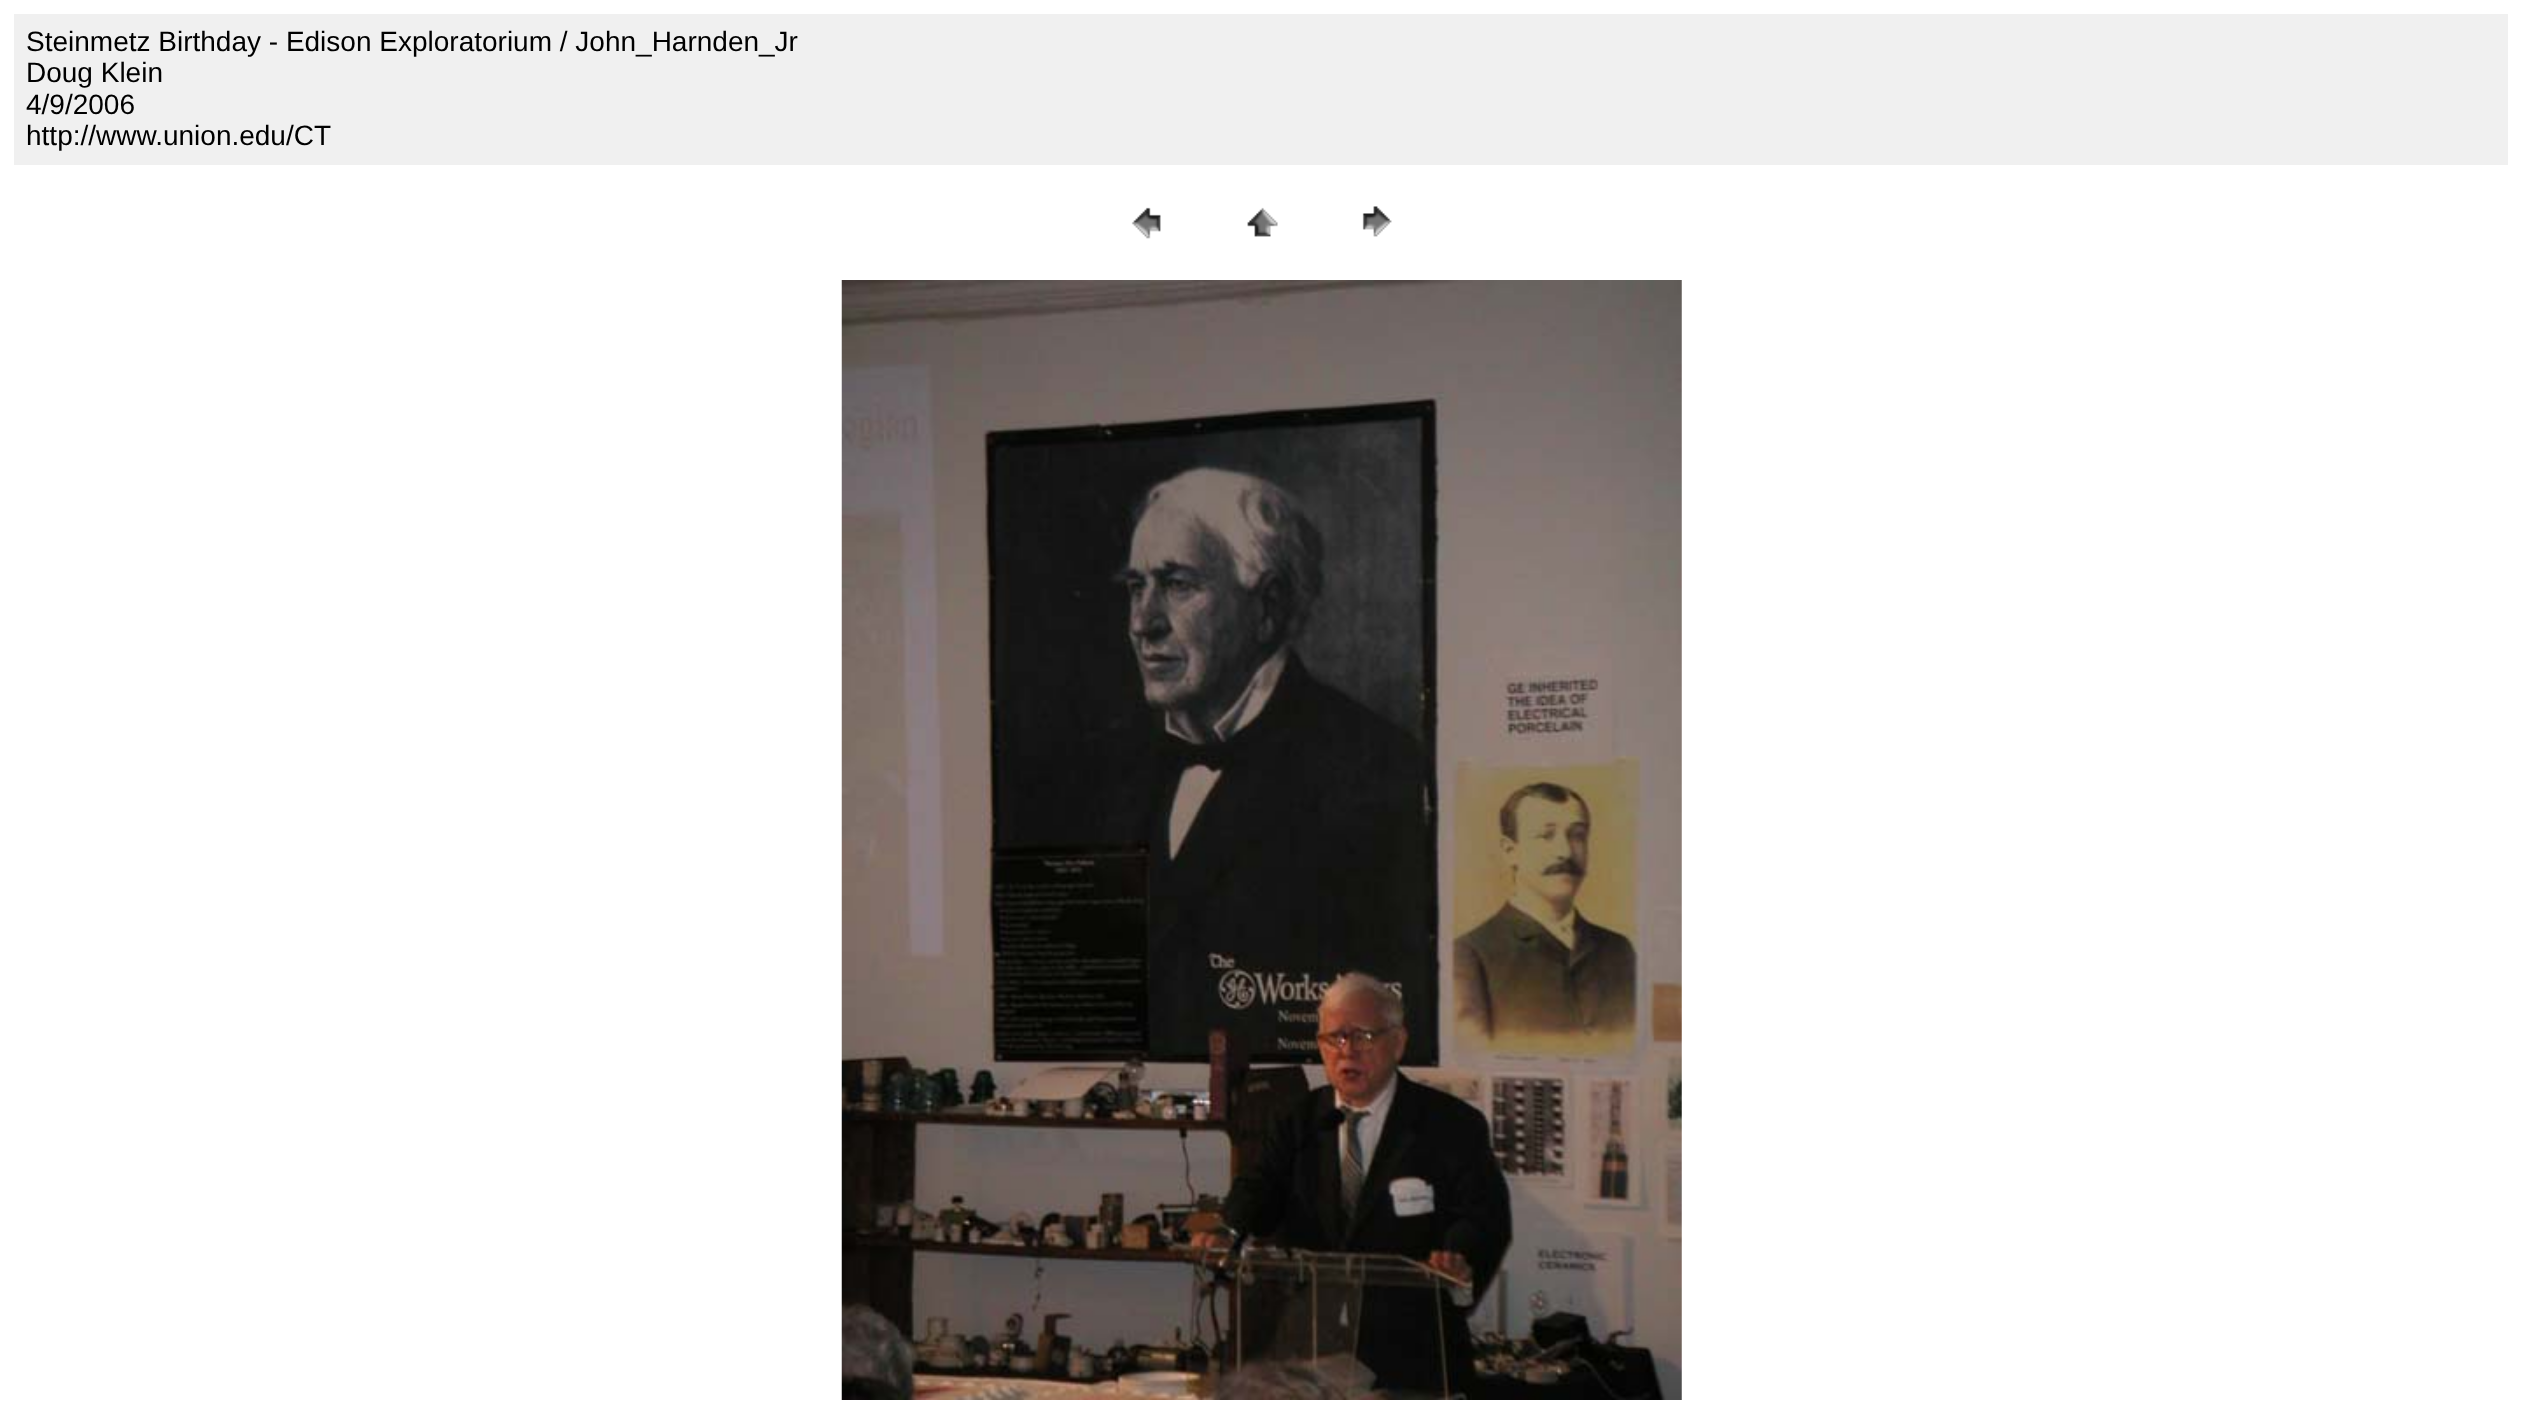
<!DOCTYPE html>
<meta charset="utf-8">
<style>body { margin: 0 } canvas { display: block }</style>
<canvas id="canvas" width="2521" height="1414"></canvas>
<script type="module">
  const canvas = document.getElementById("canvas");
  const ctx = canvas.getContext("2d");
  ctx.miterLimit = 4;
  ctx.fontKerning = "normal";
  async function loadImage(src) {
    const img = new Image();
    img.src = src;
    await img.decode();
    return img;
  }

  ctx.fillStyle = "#ffffff";
  ctx.fillRect(0, 0, 2521, 1414);
  ctx.fillStyle = "#f0f0f0";
  ctx.fillRect(14, 14, 2494, 151);
  ctx.font = "28px Liberation Sans";
  ctx.fillStyle = "#000000";
  ctx.fillText("Steinmetz Birthday - Edison Exploratorium / John_Harnden_Jr", 26, 51);
  ctx.fillText("Doug Klein", 26, 82);
  ctx.fillText("4/9/2006", 26, 114);
  ctx.fillText("http://www.union.edu/CT", 26, 145);
  ctx.drawImage(await loadImage("img1.png"), 1131, 207, 30, 32);
  ctx.drawImage(await loadImage("img2.png"), 1247, 207, 31, 30);
  ctx.drawImage(await loadImage("img3.png"), 1362, 206, 30, 31);
  ctx.drawImage(await loadImage("img4.png"), 841, 280, 841, 1120);
</script>
